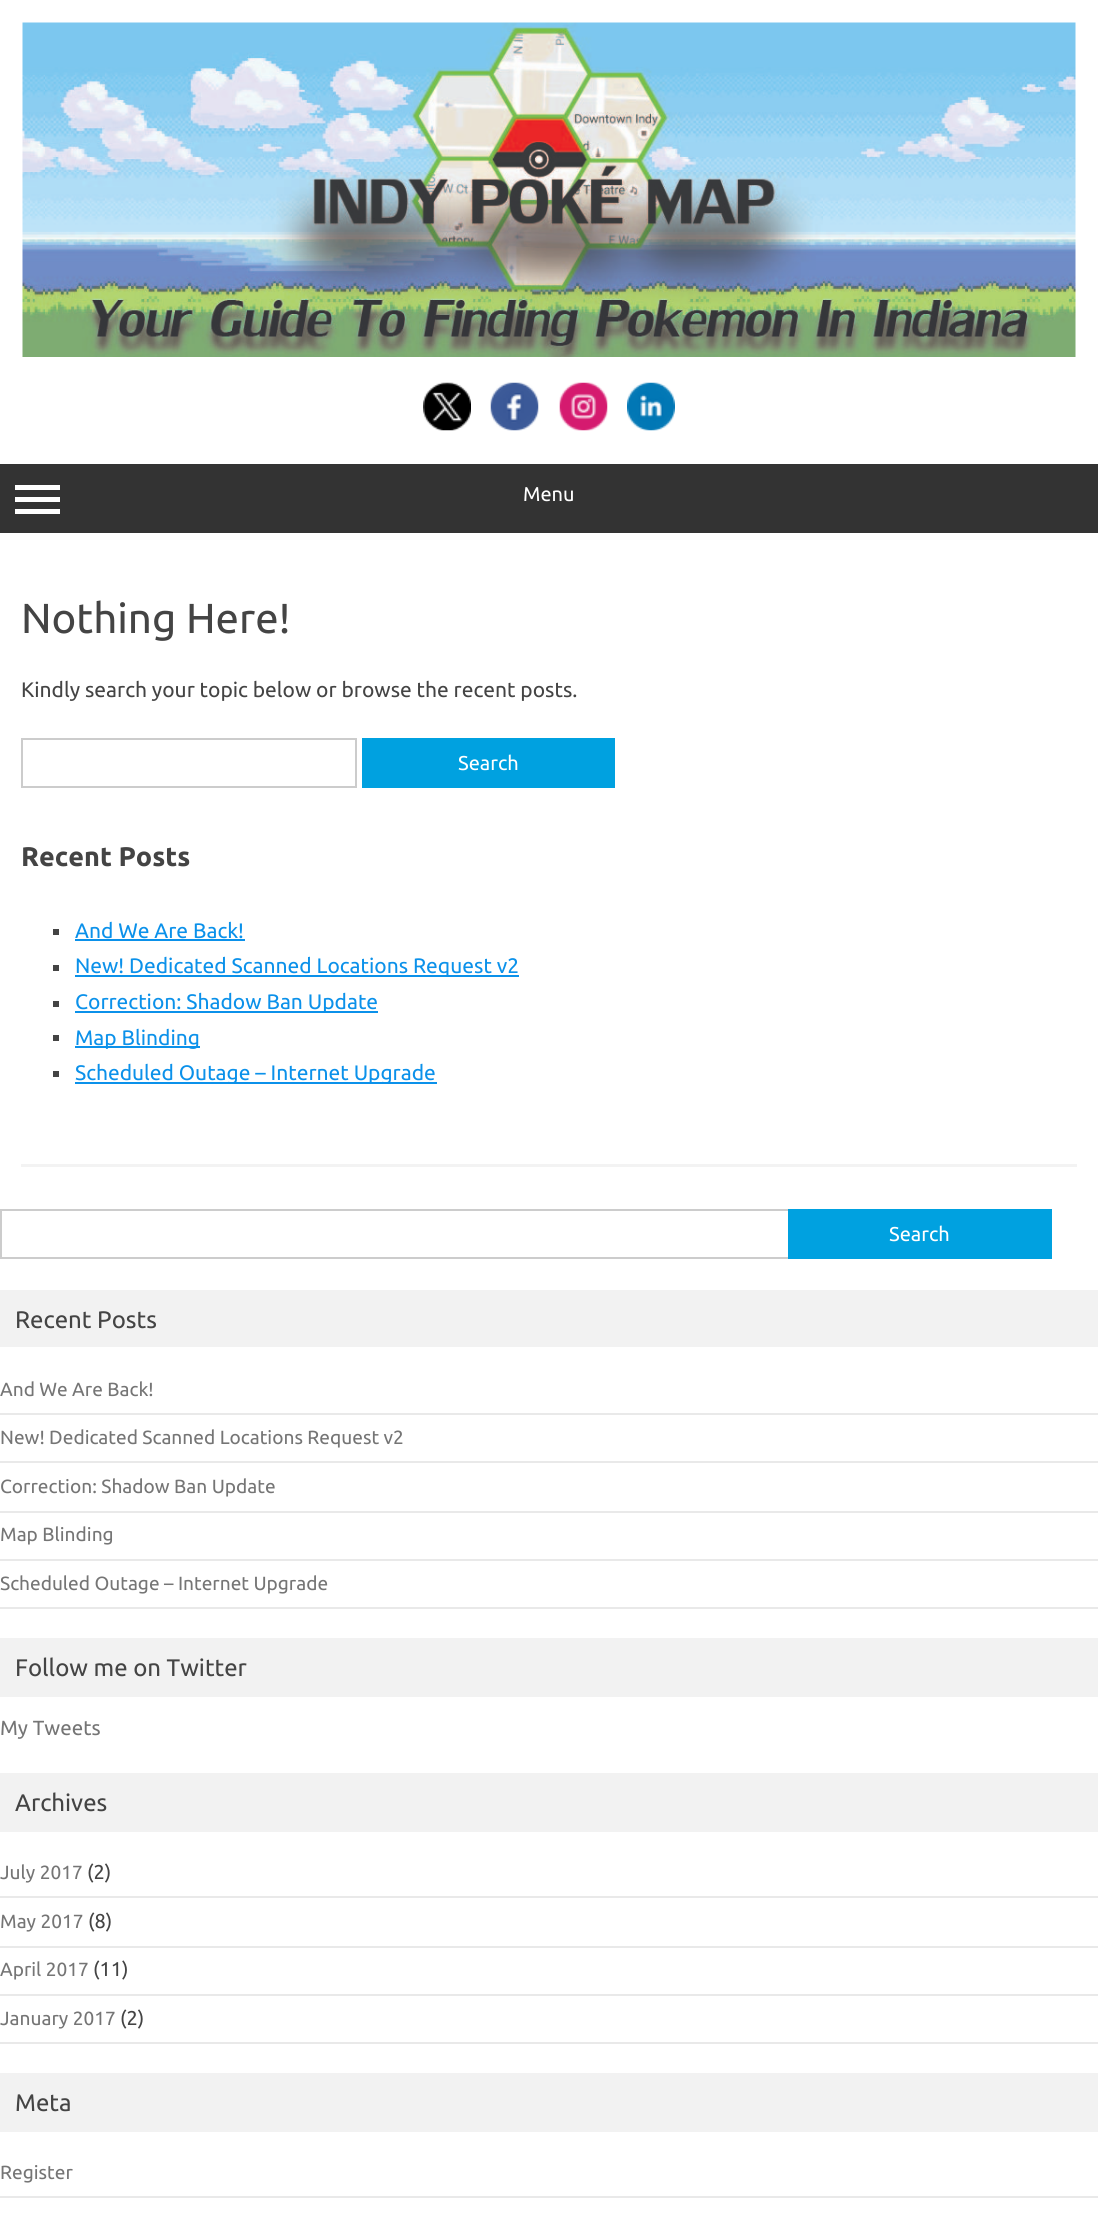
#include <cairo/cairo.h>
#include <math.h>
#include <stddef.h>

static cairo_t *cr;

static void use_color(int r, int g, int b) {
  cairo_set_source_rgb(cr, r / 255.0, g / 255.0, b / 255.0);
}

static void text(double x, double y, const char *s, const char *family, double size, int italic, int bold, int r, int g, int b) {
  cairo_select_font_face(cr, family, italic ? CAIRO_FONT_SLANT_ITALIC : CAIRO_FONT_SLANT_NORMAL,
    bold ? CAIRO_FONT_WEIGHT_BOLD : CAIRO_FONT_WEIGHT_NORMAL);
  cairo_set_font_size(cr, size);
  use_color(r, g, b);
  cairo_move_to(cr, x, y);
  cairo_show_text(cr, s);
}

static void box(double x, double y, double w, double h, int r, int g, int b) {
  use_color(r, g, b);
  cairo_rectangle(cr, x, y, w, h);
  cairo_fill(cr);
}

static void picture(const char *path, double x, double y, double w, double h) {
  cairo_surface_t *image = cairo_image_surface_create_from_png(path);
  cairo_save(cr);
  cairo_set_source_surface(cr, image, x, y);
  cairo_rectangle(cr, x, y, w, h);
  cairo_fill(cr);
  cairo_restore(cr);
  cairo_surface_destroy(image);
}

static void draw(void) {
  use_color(255, 255, 255);
  cairo_paint(cr);
  picture("img_01.png", 22, 22, 1054, 335);
  picture("img_02.png", 423, 382, 48, 49);
  picture("img_03.png", 490, 382, 49, 49);
  picture("img_04.png", 559, 382, 49, 49);
  picture("img_05.png", 627, 382, 48, 49);
  box(0, 464, 1098, 69, 51, 51, 51);
  box(15, 485, 45, 5, 255, 255, 255);
  box(15, 497, 45, 5, 255, 255, 255);
  box(15, 509, 45, 5, 255, 255, 255);
  box(21, 1164, 1056, 3, 243, 243, 243);
  cairo_rectangle(cr, 22, 739, 334, 48);
  use_color(204, 204, 204);
  cairo_stroke(cr);
  box(362, 738, 253, 50, 0, 161, 224);
  box(53, 929, 6, 6, 68, 68, 68);
  box(75, 939, 170, 2, 11, 145, 234);
  box(53, 965, 6, 6, 68, 68, 68);
  box(75, 975, 444, 2, 11, 145, 234);
  box(53, 1001, 6, 6, 68, 68, 68);
  box(75, 1011, 303, 2, 11, 145, 234);
  box(53, 1035, 6, 6, 68, 68, 68);
  box(75, 1046, 125, 2, 11, 145, 234);
  box(53, 1071, 6, 6, 68, 68, 68);
  box(75, 1082, 362, 2, 11, 145, 234);
  cairo_rectangle(cr, 1, 1210, 789, 48);
  use_color(204, 204, 204);
  cairo_stroke(cr);
  box(788, 1209, 264, 50, 0, 161, 224);
  box(0, 1290, 1098, 57, 242, 242, 242);
  box(0, 1413, 1098, 2, 233, 233, 233);
  box(0, 1461, 1098, 2, 233, 233, 233);
  box(0, 1511, 1098, 2, 233, 233, 233);
  box(0, 1559, 1098, 2, 233, 233, 233);
  box(0, 1607, 1098, 2, 233, 233, 233);
  box(0, 1638, 1098, 59, 242, 242, 242);
  box(0, 1773, 1098, 59, 242, 242, 242);
  box(0, 1896, 1098, 2, 233, 233, 233);
  box(0, 1946, 1098, 2, 233, 233, 233);
  box(0, 1994, 1098, 2, 233, 233, 233);
  box(0, 2042, 1098, 2, 233, 233, 233);
  box(0, 2073, 1098, 59, 242, 242, 242);
  box(0, 2196, 1098, 2, 233, 233, 233);
  text(523, 501, "Menu", "Ubuntu", 20, 0, 0, 255, 255, 255);
  text(21, 633, "Nothing Here!", "Ubuntu", 42, 0, 0, 68, 68, 68);
  text(21, 697, "Kindly search your topic below or browse the recent posts.", "Ubuntu", 21, 0, 0, 68, 68, 68);
  text(458, 770, "Search", "Ubuntu", 20, 0, 0, 255, 255, 255);
  text(21, 866, "Recent Posts", "Ubuntu", 27, 0, 1, 68, 68, 68);
  text(75, 938, "And We Are Back!", "Ubuntu", 21, 0, 0, 11, 145, 234);
  text(75, 973, "New! Dedicated Scanned Locations Request v2", "Ubuntu", 21, 0, 0, 11, 145, 234);
  text(75, 1009, "Correction: Shadow Ban Update", "Ubuntu", 21, 0, 0, 11, 145, 234);
  text(75, 1045, "Map Blinding", "Ubuntu", 21, 0, 0, 11, 145, 234);
  text(75, 1080, "Scheduled Outage – Internet Upgrade", "Ubuntu", 21, 0, 0, 11, 145, 234);
  text(889, 1241, "Search", "Ubuntu", 20, 0, 0, 255, 255, 255);
  text(15, 1328, "Recent Posts", "Ubuntu", 24, 0, 0, 68, 68, 68);
  text(0, 1396, "And We Are Back!", "Ubuntu", 19.1, 0, 0, 117, 117, 117);
  text(0, 1444, "New! Dedicated Scanned Locations Request v2", "Ubuntu", 19.1, 0, 0, 117, 117, 117);
  text(0, 1493, "Correction: Shadow Ban Update", "Ubuntu", 19.1, 0, 0, 117, 117, 117);
  text(0, 1541, "Map Blinding", "Ubuntu", 19.1, 0, 0, 117, 117, 117);
  text(0, 1590, "Scheduled Outage – Internet Upgrade", "Ubuntu", 19.1, 0, 0, 117, 117, 117);
  text(15, 1676, "Follow me on Twitter", "Ubuntu", 24, 0, 0, 68, 68, 68);
  text(0, 1735, "My Tweets", "Ubuntu", 20.5, 0, 0, 117, 117, 117);
  text(15, 1811, "Archives", "Ubuntu", 24, 0, 0, 68, 68, 68);
  text(0, 1879, "July 2017", "Ubuntu", 19.1, 0, 0, 117, 117, 117);
  text(87, 1879, "(2)", "Ubuntu", 20, 0, 0, 68, 68, 68);
  text(0, 1928, "May 2017", "Ubuntu", 19.1, 0, 0, 117, 117, 117);
  text(88, 1928, "(8)", "Ubuntu", 20, 0, 0, 68, 68, 68);
  text(0, 1976, "April 2017", "Ubuntu", 19.1, 0, 0, 117, 117, 117);
  text(93, 1976, "(11)", "Ubuntu", 20, 0, 0, 68, 68, 68);
  text(0, 2025, "January 2017", "Ubuntu", 19.1, 0, 0, 117, 117, 117);
  text(120, 2025, "(2)", "Ubuntu", 20, 0, 0, 68, 68, 68);
  text(15, 2111, "Meta", "Ubuntu", 24, 0, 0, 68, 68, 68);
  text(0, 2179, "Register", "Ubuntu", 19.1, 0, 0, 117, 117, 117);
}

int main(void) {
  cairo_surface_t *surface = cairo_image_surface_create(CAIRO_FORMAT_RGB24, 1098, 2214);
  cr = cairo_create(surface);
  cairo_font_options_t *options = cairo_font_options_create();
  cairo_font_options_set_hint_metrics(options, CAIRO_HINT_METRICS_OFF);
  cairo_font_options_set_hint_style(options, CAIRO_HINT_STYLE_NONE);
  cairo_set_font_options(cr, options);
  cairo_set_miter_limit(cr, 4);
  draw();
  cairo_surface_write_to_png(surface, "out.png");
  cairo_font_options_destroy(options);
  cairo_destroy(cr);
  cairo_surface_destroy(surface);
  return 0;
}
